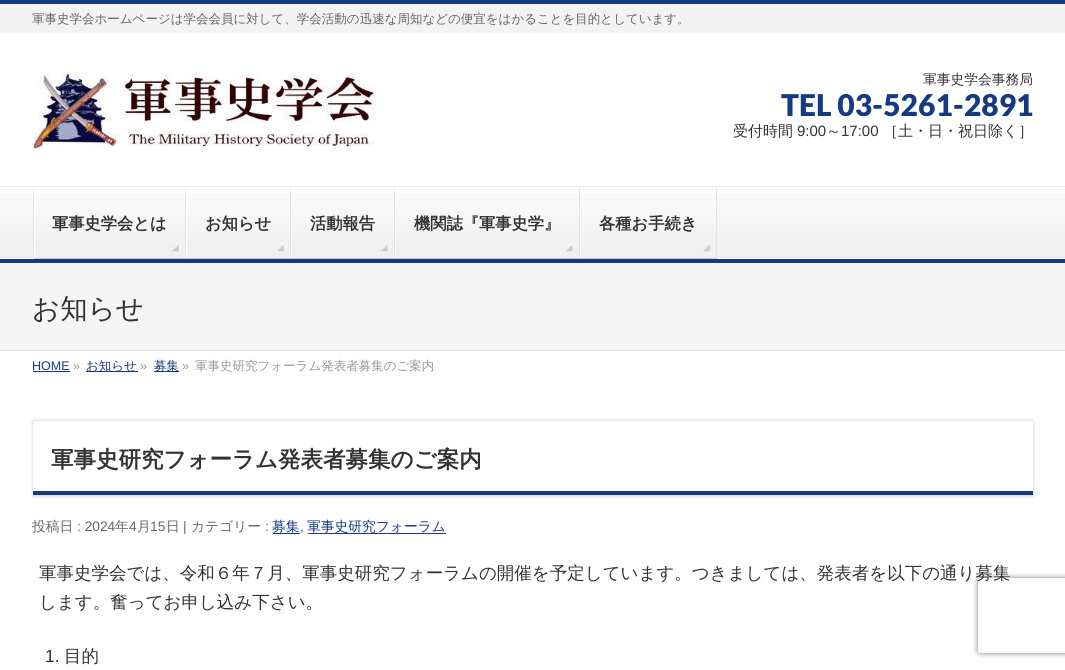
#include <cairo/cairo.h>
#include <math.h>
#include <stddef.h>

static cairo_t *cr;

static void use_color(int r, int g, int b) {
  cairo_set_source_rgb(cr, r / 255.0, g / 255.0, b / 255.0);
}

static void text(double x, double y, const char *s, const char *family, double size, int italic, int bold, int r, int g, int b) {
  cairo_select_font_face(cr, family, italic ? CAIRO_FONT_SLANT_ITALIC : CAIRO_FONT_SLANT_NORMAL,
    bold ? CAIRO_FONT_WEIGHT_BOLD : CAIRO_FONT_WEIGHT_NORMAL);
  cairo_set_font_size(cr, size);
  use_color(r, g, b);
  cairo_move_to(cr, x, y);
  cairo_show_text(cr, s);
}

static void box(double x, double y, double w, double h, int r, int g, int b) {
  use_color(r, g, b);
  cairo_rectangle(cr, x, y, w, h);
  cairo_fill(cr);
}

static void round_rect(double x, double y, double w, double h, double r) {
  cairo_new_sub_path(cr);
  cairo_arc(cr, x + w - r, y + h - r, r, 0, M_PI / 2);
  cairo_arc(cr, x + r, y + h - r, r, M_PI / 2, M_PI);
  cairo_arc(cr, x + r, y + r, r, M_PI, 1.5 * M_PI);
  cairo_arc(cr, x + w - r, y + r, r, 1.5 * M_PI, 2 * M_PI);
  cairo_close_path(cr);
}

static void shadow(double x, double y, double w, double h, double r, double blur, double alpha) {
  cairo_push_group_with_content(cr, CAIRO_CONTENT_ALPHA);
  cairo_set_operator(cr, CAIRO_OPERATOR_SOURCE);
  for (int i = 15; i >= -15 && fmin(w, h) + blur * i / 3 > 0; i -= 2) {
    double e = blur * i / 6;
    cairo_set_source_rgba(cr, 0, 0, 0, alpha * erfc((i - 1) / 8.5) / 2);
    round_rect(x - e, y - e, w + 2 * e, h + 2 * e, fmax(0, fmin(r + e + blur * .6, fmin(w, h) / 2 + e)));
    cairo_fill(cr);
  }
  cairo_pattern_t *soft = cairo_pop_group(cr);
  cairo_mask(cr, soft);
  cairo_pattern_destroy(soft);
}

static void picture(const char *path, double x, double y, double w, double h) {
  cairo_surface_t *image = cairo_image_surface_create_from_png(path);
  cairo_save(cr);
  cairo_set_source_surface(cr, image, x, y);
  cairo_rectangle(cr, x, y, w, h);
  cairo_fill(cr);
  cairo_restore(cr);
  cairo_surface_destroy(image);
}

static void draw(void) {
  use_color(255, 255, 255);
  cairo_paint(cr);
  box(0, 4, 1065, 29, 243, 243, 243);
  box(0, 0, 1065, 4, 22, 58, 130);
  picture("img_01.png", 32, 73, 342, 76);
  picture("img_02.png", 0, 193, 1065, 66);
  box(0, 186, 1065, 1, 238, 238, 238);
  box(0, 259, 1065, 4, 22, 58, 130);
  box(33, 188, 1, 71, 229, 229, 229);
  box(34, 188, 1, 71, 255, 255, 255);
  picture("img_03.png", 172, 245, 7, 7);
  box(185, 188, 1, 71, 229, 229, 229);
  box(34, 258, 152, 1, 204, 204, 204);
  box(186, 188, 1, 71, 255, 255, 255);
  picture("img_04.png", 277, 245, 7, 7);
  box(290, 188, 1, 71, 229, 229, 229);
  box(186, 258, 105, 1, 204, 204, 204);
  box(291, 188, 1, 71, 255, 255, 255);
  picture("img_05.png", 381, 245, 7, 7);
  box(394, 188, 1, 71, 229, 229, 229);
  box(291, 258, 104, 1, 204, 204, 204);
  box(395, 188, 1, 71, 255, 255, 255);
  picture("img_05.png", 566, 245, 7, 7);
  box(579, 188, 1, 71, 229, 229, 229);
  box(395, 258, 185, 1, 204, 204, 204);
  box(580, 188, 1, 71, 255, 255, 255);
  picture("img_06.png", 703, 245, 8, 7);
  box(716, 188, 1, 71, 229, 229, 229);
  box(580, 258, 138, 1, 204, 204, 204);
  box(0, 263, 1065, 87, 245, 245, 245);
  box(0, 350, 1065, 1, 229, 229, 229);
  box(33, 371, 37, 1, 22, 58, 130);
  box(86, 371, 52, 1, 22, 58, 130);
  box(154, 371, 25, 1, 22, 58, 130);
  cairo_save(cr);
  cairo_set_fill_rule(cr, CAIRO_FILL_RULE_EVEN_ODD);
  cairo_new_path(cr);
  cairo_move_to(cr, 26, 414);
  cairo_line_to(cr, 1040, 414);
  cairo_line_to(cr, 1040, 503);
  cairo_line_to(cr, 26, 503);
  cairo_close_path(cr);
  cairo_move_to(cr, 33, 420);
  cairo_line_to(cr, 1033, 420);
  cairo_line_to(cr, 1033, 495);
  cairo_line_to(cr, 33, 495);
  cairo_close_path(cr);
  cairo_clip(cr);
  use_color(0, 0, 0);
  shadow(33, 421, 1000, 75, 0, 2, 0.2);
  cairo_restore(cr);
  box(33, 420, 1000, 1, 229, 229, 229);
  box(33, 491, 1000, 4, 22, 58, 130);
  box(273, 533, 27, 1, 22, 58, 130);
  box(308, 533, 138, 1, 22, 58, 130);
  cairo_save(cr);
  cairo_set_fill_rule(cr, CAIRO_FILL_RULE_EVEN_ODD);
  cairo_new_path(cr);
  cairo_move_to(cr, 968, 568);
  cairo_line_to(cr, 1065, 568);
  cairo_line_to(cr, 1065, 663);
  cairo_line_to(cr, 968, 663);
  cairo_close_path(cr);
  cairo_move_to(cr, 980.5, 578);
  cairo_line_to(cr, 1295.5, 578);
  cairo_curve_to(cr, 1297, 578, 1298, 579, 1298, 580.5);
  cairo_line_to(cr, 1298, 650.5);
  cairo_curve_to(cr, 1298, 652, 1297, 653, 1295.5, 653);
  cairo_line_to(cr, 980.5, 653);
  cairo_curve_to(cr, 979, 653, 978, 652, 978, 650.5);
  cairo_line_to(cr, 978, 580.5);
  cairo_curve_to(cr, 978, 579, 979, 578, 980.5, 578);
  cairo_close_path(cr);
  cairo_clip(cr);
  use_color(128, 128, 128);
  shadow(978, 578, 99, 75, 2.5, 3, 1);
  cairo_restore(cr);
  text(32, 23, "軍事史学会ホームページは学会会員に対して、学会活動の迅速な周知などの便宜をはかることを目的としています。", "WenQuanYi Zen Hei Medium", 12.5, 0, 0, 102, 102, 102);
  text(923, 84, "軍事史学会事務局", "WenQuanYi Zen Hei Medium", 13.75, 0, 0, 51, 51, 51);
  text(781, 116, "TEL 03-5261-2891", "Lato Black", 30, 0, 0, 22, 58, 130);
  text(733, 136, "受付時間", "WenQuanYi Zen Hei Medium", 15, 0, 0, 51, 51, 51);
  text(797, 136, "9:00", "Liberation Sans", 15, 0, 0, 51, 51, 51);
  text(826, 136, "～", "WenQuanYi Zen Hei Medium", 15, 0, 0, 51, 51, 51);
  text(841, 136, "17:00", "Liberation Sans", 15, 0, 0, 51, 51, 51);
  text(883, 136, "［土・日・祝日除く］", "WenQuanYi Zen Hei Medium", 15, 0, 0, 51, 51, 51);
  text(52, 229, "軍事史学会とは", "WenQuanYi Zen Hei", 16.25, 0, 1, 51, 51, 51);
  text(205, 229, "お知らせ", "WenQuanYi Zen Hei", 16.25, 0, 1, 51, 51, 51);
  text(310, 229, "活動報告", "WenQuanYi Zen Hei", 16.25, 0, 1, 51, 51, 51);
  text(414, 229, "機関誌『軍事史学』", "WenQuanYi Zen Hei", 16.25, 0, 1, 51, 51, 51);
  text(599, 229, "各種お手続き", "WenQuanYi Zen Hei", 16.25, 0, 1, 51, 51, 51);
  text(32, 318, "お知らせ", "WenQuanYi Zen Hei Medium", 27.5, 0, 0, 51, 51, 51);
  text(32, 370, "HOME", "Liberation Sans", 12.5, 0, 0, 22, 58, 130);
  text(73, 370, "»", "Liberation Sans", 12.5, 0, 0, 153, 153, 153);
  text(86, 370, "お知らせ", "WenQuanYi Zen Hei Medium", 12.5, 0, 0, 22, 58, 130);
  text(140, 370, "»", "Liberation Sans", 12.5, 0, 0, 153, 153, 153);
  text(154, 370, "募集", "WenQuanYi Zen Hei Medium", 12.5, 0, 0, 22, 58, 130);
  text(182, 370, "»", "Liberation Sans", 12.5, 0, 0, 153, 153, 153);
  text(195, 370, "軍事史研究フォーラム発表者募集のご案内", "WenQuanYi Zen Hei Medium", 12.5, 0, 0, 153, 153, 153);
  text(51, 467, "軍事史研究フォーラム発表者募集のご案内", "WenQuanYi Zen Hei", 22.5, 0, 1, 51, 51, 51);
  text(32, 531, "投稿日", "WenQuanYi Zen Hei Medium", 13.75, 0, 0, 102, 102, 102);
  text(77, 531, ": 2024", "Liberation Sans", 13.75, 0, 0, 102, 102, 102);
  text(115, 531, "年", "WenQuanYi Zen Hei Medium", 13.75, 0, 0, 102, 102, 102);
  text(129, 531, "4", "Liberation Sans", 13.75, 0, 0, 102, 102, 102);
  text(137, 531, "月", "WenQuanYi Zen Hei Medium", 13.75, 0, 0, 102, 102, 102);
  text(150, 531, "15", "Liberation Sans", 13.75, 0, 0, 102, 102, 102);
  text(166, 531, "日", "WenQuanYi Zen Hei Medium", 13.75, 0, 0, 102, 102, 102);
  text(183, 531, "|", "Liberation Sans", 13.75, 0, 0, 102, 102, 102);
  text(191, 531, "カテゴリー", "WenQuanYi Zen Hei Medium", 13.75, 0, 0, 102, 102, 102);
  text(265, 531, ":", "Liberation Sans", 13.75, 0, 0, 102, 102, 102);
  text(272, 531, "募集", "WenQuanYi Zen Hei Medium", 13.75, 0, 0, 22, 58, 130);
  text(300, 531, ",", "Liberation Sans", 13.75, 0, 0, 102, 102, 102);
  text(307, 531, "軍事史研究フォーラム", "WenQuanYi Zen Hei Medium", 13.75, 0, 0, 22, 58, 130);
  text(39, 579, "軍事史学会では、令和６年７月、軍事史研究フォーラムの開催を予定しています。つきましては、発表者を以下の通り募集", "WenQuanYi Zen Hei Medium", 17.5, 0, 0, 51, 51, 51);
  text(39, 608, "します。奮ってお申し込み下さい。", "WenQuanYi Zen Hei Medium", 17.5, 0, 0, 51, 51, 51);
  text(45, 662, "1.", "Liberation Sans", 17.5, 0, 0, 51, 51, 51);
  text(64, 662, "目的", "WenQuanYi Zen Hei Medium", 17.5, 0, 0, 51, 51, 51);
}

int main(void) {
  cairo_surface_t *surface = cairo_image_surface_create(CAIRO_FORMAT_RGB24, 1065, 670);
  cr = cairo_create(surface);
  cairo_font_options_t *options = cairo_font_options_create();
  cairo_font_options_set_hint_metrics(options, CAIRO_HINT_METRICS_OFF);
  cairo_font_options_set_hint_style(options, CAIRO_HINT_STYLE_NONE);
  cairo_set_font_options(cr, options);
  cairo_set_miter_limit(cr, 4);
  draw();
  cairo_surface_write_to_png(surface, "out.png");
  cairo_font_options_destroy(options);
  cairo_destroy(cr);
  cairo_surface_destroy(surface);
  return 0;
}
